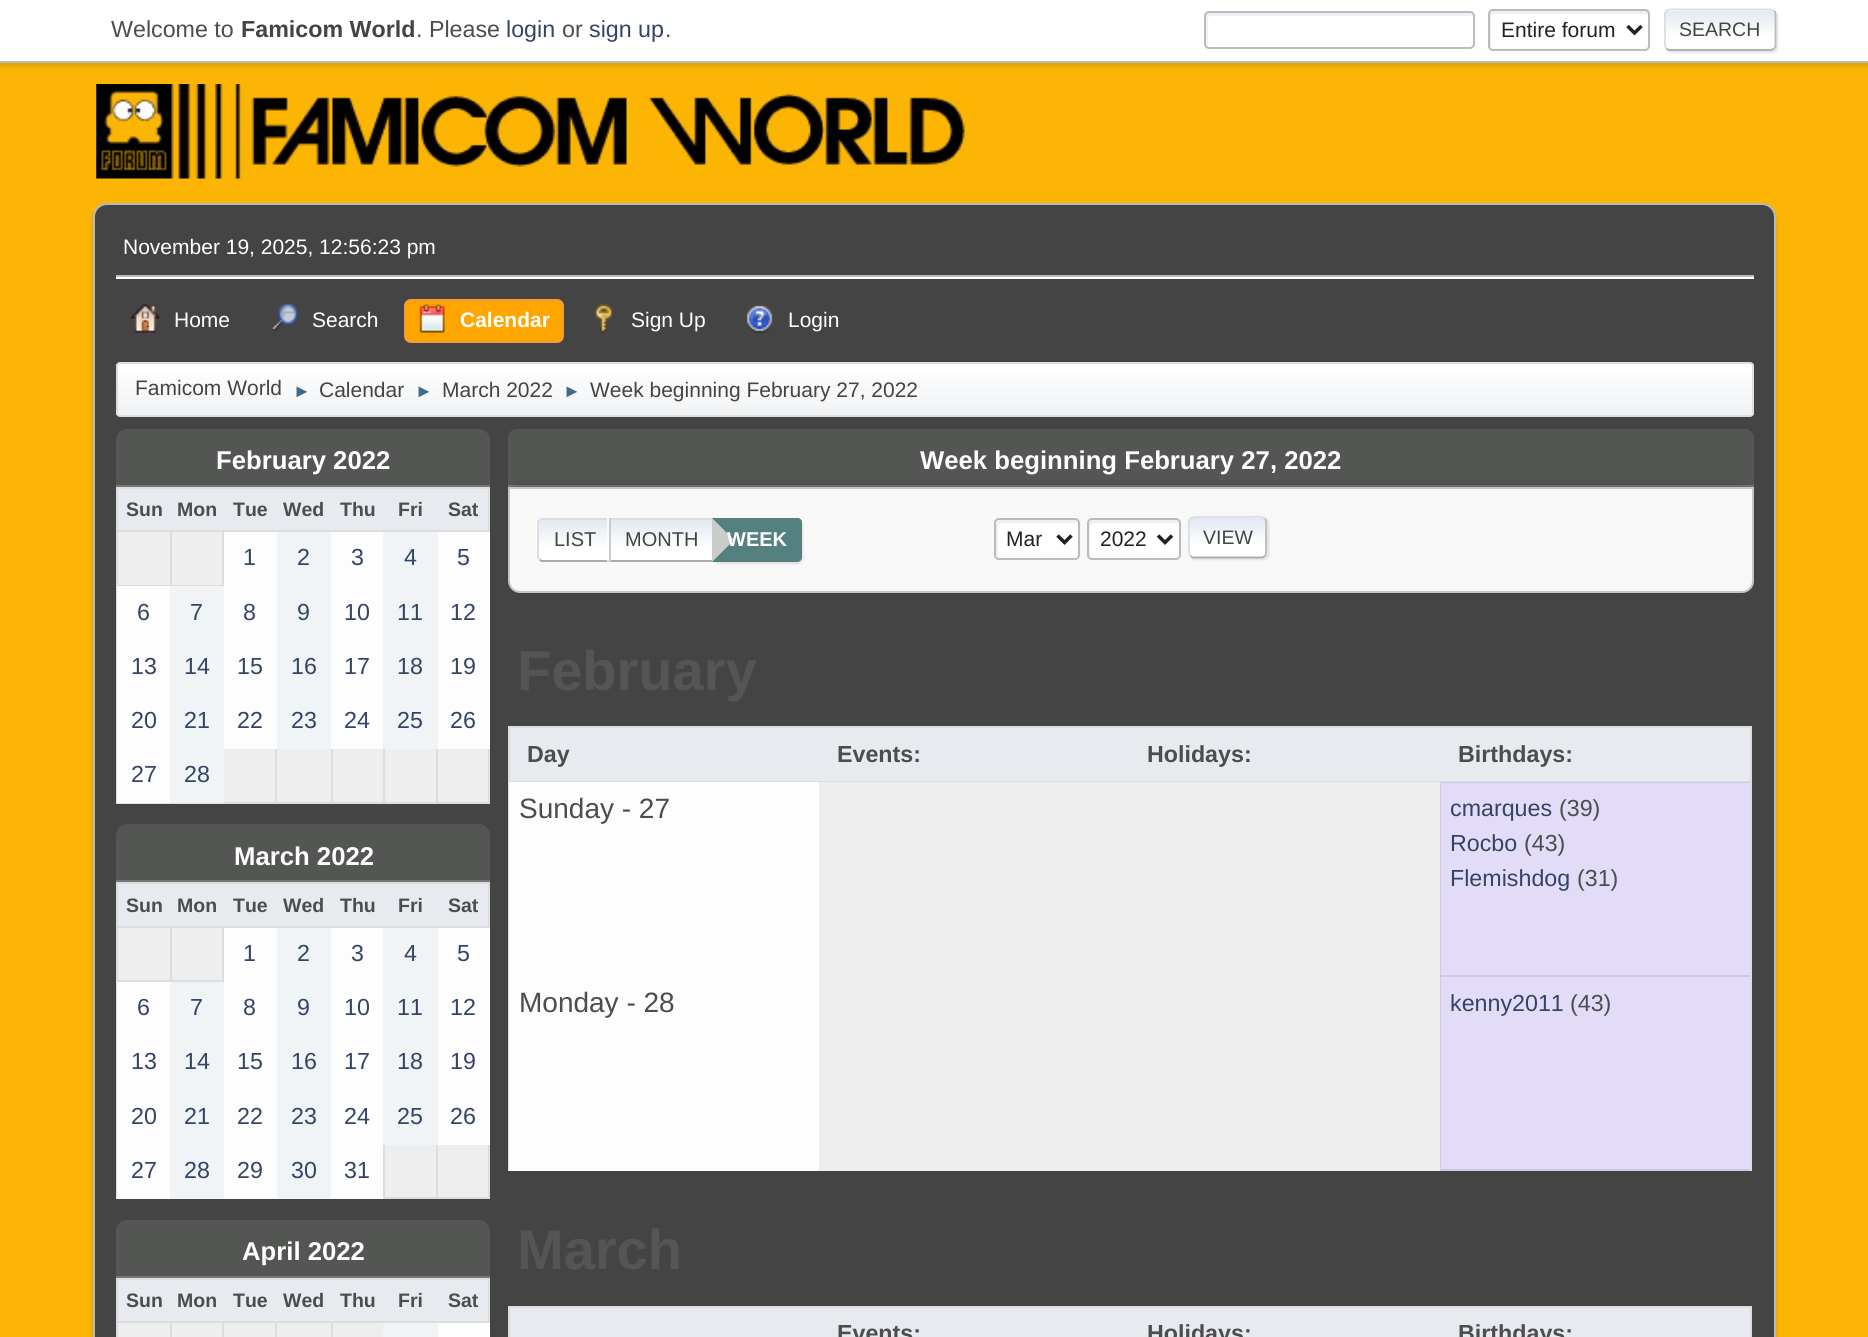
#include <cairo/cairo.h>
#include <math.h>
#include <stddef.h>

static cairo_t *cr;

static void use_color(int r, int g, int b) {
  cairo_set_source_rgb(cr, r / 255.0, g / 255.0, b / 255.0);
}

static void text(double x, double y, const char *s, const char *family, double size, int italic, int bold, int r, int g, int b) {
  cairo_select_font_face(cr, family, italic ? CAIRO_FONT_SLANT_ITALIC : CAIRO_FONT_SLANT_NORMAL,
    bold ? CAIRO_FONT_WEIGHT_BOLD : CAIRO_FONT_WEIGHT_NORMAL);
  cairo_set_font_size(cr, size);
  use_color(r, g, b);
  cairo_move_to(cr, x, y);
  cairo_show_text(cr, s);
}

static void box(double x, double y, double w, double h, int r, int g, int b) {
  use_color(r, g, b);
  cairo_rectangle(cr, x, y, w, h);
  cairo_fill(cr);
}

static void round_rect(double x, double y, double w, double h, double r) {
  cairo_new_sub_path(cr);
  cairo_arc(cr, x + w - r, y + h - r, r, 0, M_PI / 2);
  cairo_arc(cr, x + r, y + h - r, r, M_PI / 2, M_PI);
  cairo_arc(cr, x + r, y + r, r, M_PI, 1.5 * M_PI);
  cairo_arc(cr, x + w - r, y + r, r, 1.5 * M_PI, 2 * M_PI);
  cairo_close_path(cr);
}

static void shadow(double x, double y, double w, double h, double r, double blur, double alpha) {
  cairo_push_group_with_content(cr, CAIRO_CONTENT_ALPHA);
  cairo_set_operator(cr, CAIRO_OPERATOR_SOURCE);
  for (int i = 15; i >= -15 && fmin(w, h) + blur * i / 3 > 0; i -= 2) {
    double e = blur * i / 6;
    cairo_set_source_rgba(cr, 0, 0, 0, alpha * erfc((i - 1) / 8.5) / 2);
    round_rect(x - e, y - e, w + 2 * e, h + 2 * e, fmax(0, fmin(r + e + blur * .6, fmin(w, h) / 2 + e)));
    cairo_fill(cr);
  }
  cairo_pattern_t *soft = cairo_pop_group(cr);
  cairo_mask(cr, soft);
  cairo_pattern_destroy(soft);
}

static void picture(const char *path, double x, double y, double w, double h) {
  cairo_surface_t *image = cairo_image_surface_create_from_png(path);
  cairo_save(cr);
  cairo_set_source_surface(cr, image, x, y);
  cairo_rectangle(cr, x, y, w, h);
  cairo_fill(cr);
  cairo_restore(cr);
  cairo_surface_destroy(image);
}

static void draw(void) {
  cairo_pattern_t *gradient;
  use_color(252, 181, 4);
  cairo_paint(cr);
  use_color(0, 0, 0);
  shadow(0, 2, 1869, 63, 0, 3.5, 0.16);
  box(0, 0, 1868, 61, 255, 255, 255);
  box(0, 61, 1868, 2, 187, 187, 187);
  use_color(236, 241, 248);
  cairo_new_path(cr);
  cairo_move_to(cr, 1211, 16);
  cairo_line_to(cr, 1472, 16);
  cairo_line_to(cr, 1474, 17);
  cairo_line_to(cr, 1474, 16);
  cairo_curve_to(cr, 1474, 14, 1472, 12, 1470, 12);
  cairo_line_to(cr, 1210, 12);
  cairo_curve_to(cr, 1208, 12, 1206, 14, 1206, 16);
  cairo_line_to(cr, 1206, 43);
  cairo_curve_to(cr, 1206, 44, 1207, 46, 1208, 46);
  cairo_line_to(cr, 1208, 19);
  cairo_curve_to(cr, 1208, 17, 1209, 16, 1211, 16);
  cairo_close_path(cr);
  cairo_fill(cr);
  round_rect(1205, 12, 269, 36, 4);
  use_color(187, 187, 187);
  cairo_stroke(cr);
  use_color(236, 241, 248);
  cairo_new_path(cr);
  cairo_move_to(cr, 1494, 14);
  cairo_line_to(cr, 1647, 14);
  cairo_line_to(cr, 1649, 15);
  cairo_curve_to(cr, 1649, 13, 1647, 11, 1645, 11);
  cairo_line_to(cr, 1493, 11);
  cairo_curve_to(cr, 1491, 11, 1489, 13, 1489, 15);
  cairo_line_to(cr, 1489, 45);
  cairo_curve_to(cr, 1489, 46, 1490, 48, 1491, 48);
  cairo_line_to(cr, 1491, 18);
  cairo_curve_to(cr, 1491, 16, 1493, 14, 1494, 14);
  cairo_close_path(cr);
  cairo_fill(cr);
  round_rect(1489, 10, 160, 40, 4);
  use_color(187, 187, 187);
  cairo_stroke(cr);
  cairo_new_path(cr);
  cairo_move_to(cr, 1627.5, 26);
  cairo_line_to(cr, 1634.5, 33);
  cairo_line_to(cr, 1641.5, 26);
  use_color(34, 34, 34);
  cairo_set_line_width(cr, 3.5);
  cairo_stroke(cr);
  use_color(0, 0, 0);
  shadow(1666, 11, 112, 42, 5, 1, 0.1);
  use_color(255, 255, 255);
  round_rect(1664, 9, 112, 42, 5);
  cairo_fill(cr);
  cairo_save(cr);
  round_rect(1664, 9, 112, 42, 5);
  cairo_clip(cr);
  gradient = cairo_pattern_create_linear(1720, 10, 1720, 49);
  cairo_pattern_add_color_stop_rgba(gradient, 0, 0.886, 0.914, 0.953, 1);
  cairo_pattern_add_color_stop_rgba(gradient, 0.7, 1, 1, 1, 1);
  cairo_set_source(cr, gradient);
  cairo_pattern_destroy(gradient);
  cairo_rectangle(cr, 1664, 11, 112, 38);
  cairo_fill(cr);
  gradient = cairo_pattern_create_linear(1720, 49, 1720, 88);
  cairo_pattern_add_color_stop_rgba(gradient, 0, 0.886, 0.914, 0.953, 1);
  cairo_pattern_add_color_stop_rgba(gradient, 0.7, 1, 1, 1, 1);
  cairo_set_source(cr, gradient);
  cairo_pattern_destroy(gradient);
  cairo_rectangle(cr, 1664, 49, 112, 2);
  cairo_fill(cr);
  cairo_restore(cr);
  cairo_new_path(cr);
  cairo_move_to(cr, 1774, 11);
  cairo_curve_to(cr, 1775, 11.5, 1775.5, 13, 1775.5, 14);
  cairo_line_to(cr, 1775.5, 45.5);
  cairo_curve_to(cr, 1775.5, 46.5, 1775, 48, 1774, 48.5);
  use_color(187, 187, 187);
  cairo_set_line_width(cr, 1.8);
  cairo_stroke(cr);
  cairo_new_path(cr);
  cairo_move_to(cr, 1774, 48.5);
  cairo_line_to(cr, 1771.5, 50);
  cairo_line_to(cr, 1669, 50);
  cairo_line_to(cr, 1666.5, 48.5);
  use_color(170, 170, 170);
  cairo_stroke(cr);
  cairo_new_path(cr);
  cairo_move_to(cr, 1666.5, 48.5);
  cairo_curve_to(cr, 1664.5, 46.5, 1665, 42.5, 1665, 40);
  cairo_line_to(cr, 1665, 30);
  cairo_curve_to(cr, 1665, 6, 1661.5, 9.5, 1686.5, 9.5);
  cairo_line_to(cr, 1771, 9.5);
  cairo_line_to(cr, 1774, 11);
  use_color(221, 221, 221);
  cairo_stroke(cr);
  picture("img_01.png", 96, 84, 869, 95);
  use_color(0, 0, 0);
  shadow(93, 207, 1683, 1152, 14, 2.5, 0.14);
  use_color(68, 68, 68);
  round_rect(94, 204, 1681, 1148, 13);
  cairo_fill_preserve(cr);
  use_color(184, 184, 184);
  cairo_set_line_width(cr, 2);
  cairo_stroke(cr);
  box(116, 277, 1638, 2, 255, 255, 255);
  box(116, 275, 1638, 2, 187, 187, 187);
  picture("img_02.png", 131, 304, 29, 29);
  picture("img_03.png", 272, 304, 26, 27);
  use_color(255, 165, 0);
  round_rect(405, 300, 158, 42, 6);
  cairo_fill_preserve(cr);
  use_color(244, 154, 58);
  cairo_stroke(cr);
  picture("img_04.png", 419, 304, 26, 29);
  picture("img_05.png", 594, 304, 19, 29);
  picture("img_06.png", 746, 305, 27, 28);
  cairo_save(cr);
  round_rect(116, 362, 1638, 55, 4);
  cairo_clip(cr);
  gradient = cairo_pattern_create_linear(935, 364, 935, 415);
  cairo_pattern_add_color_stop_rgba(gradient, 0, 1, 1, 1, 1);
  cairo_pattern_add_color_stop_rgba(gradient, 0.95, 0.945, 0.953, 0.961, 1);
  cairo_set_source(cr, gradient);
  cairo_pattern_destroy(gradient);
  cairo_rectangle(cr, 116, 364, 1638, 51);
  cairo_fill(cr);
  cairo_restore(cr);
  round_rect(117, 363, 1636, 53, 3);
  use_color(221, 221, 221);
  cairo_stroke(cr);
  use_color(84, 86, 84);
  cairo_new_path(cr);
  cairo_move_to(cr, 127, 429);
  cairo_line_to(cr, 479, 429);
  cairo_curve_to(cr, 485, 429, 490, 434, 490, 440);
  cairo_line_to(cr, 490, 487);
  cairo_line_to(cr, 116, 487);
  cairo_line_to(cr, 116, 440);
  cairo_curve_to(cr, 116, 434, 121, 429, 127, 429);
  cairo_close_path(cr);
  cairo_fill(cr);
  box(116, 485, 374, 2, 119, 119, 119);
  box(116, 487, 374, 2, 221, 221, 221);
  box(488, 487, 2, 316, 221, 221, 221);
  box(116, 802, 374, 2, 221, 221, 221);
  box(116, 487, 2, 316, 221, 221, 221);
  box(118, 489, 370, 41, 231, 234, 239);
  box(116, 530, 374, 2, 221, 221, 221);
  box(118, 532, 52, 53, 238, 238, 238);
  box(172, 532, 50, 53, 238, 238, 238);
  box(170, 585, 54, 1, 221, 221, 221);
  box(116, 585, 56, 2, 221, 221, 221);
  box(170, 530, 2, 56, 221, 221, 221);
  box(222, 530, 2, 56, 221, 221, 221);
  box(275, 747, 2, 56, 221, 221, 221);
  box(224, 532, 53, 217, 253, 253, 253);
  box(277, 532, 54, 217, 240, 244, 247);
  box(331, 747, 2, 56, 221, 221, 221);
  box(331, 532, 52, 217, 253, 253, 253);
  box(383, 747, 2, 56, 221, 221, 221);
  box(436, 747, 2, 56, 221, 221, 221);
  box(383, 532, 55, 217, 240, 244, 247);
  box(438, 532, 52, 217, 253, 253, 253);
  box(117, 586, 53, 217, 253, 253, 253);
  box(170, 586, 54, 217, 240, 244, 247);
  box(224, 749, 51, 53, 238, 238, 238);
  box(277, 749, 54, 53, 238, 238, 238);
  box(333, 749, 50, 53, 238, 238, 238);
  box(385, 749, 51, 53, 238, 238, 238);
  box(438, 749, 50, 53, 238, 238, 238);
  use_color(84, 86, 84);
  cairo_new_path(cr);
  cairo_move_to(cr, 127, 824);
  cairo_line_to(cr, 479, 824);
  cairo_curve_to(cr, 485, 824, 490, 829, 490, 835);
  cairo_line_to(cr, 490, 882);
  cairo_line_to(cr, 116, 882);
  cairo_line_to(cr, 116, 835);
  cairo_curve_to(cr, 116, 829, 121, 824, 127, 824);
  cairo_close_path(cr);
  cairo_fill(cr);
  box(116, 880, 374, 2, 119, 119, 119);
  box(116, 882, 374, 2, 221, 221, 221);
  box(488, 882, 2, 317, 221, 221, 221);
  box(385, 1197, 105, 2, 221, 221, 221);
  box(116, 882, 2, 317, 221, 221, 221);
  box(118, 884, 370, 42, 231, 234, 239);
  box(116, 926, 374, 2, 221, 221, 221);
  box(118, 928, 52, 52, 238, 238, 238);
  box(172, 928, 50, 52, 238, 238, 238);
  box(116, 980, 108, 2, 221, 221, 221);
  box(170, 926, 2, 56, 221, 221, 221);
  box(222, 926, 2, 56, 221, 221, 221);
  box(224, 928, 53, 271, 253, 253, 253);
  box(277, 928, 54, 271, 240, 244, 247);
  box(331, 928, 52, 271, 253, 253, 253);
  box(383, 1143, 2, 56, 221, 221, 221);
  box(436, 1143, 2, 56, 221, 221, 221);
  box(383, 928, 55, 217, 240, 244, 247);
  box(438, 928, 52, 217, 253, 253, 253);
  box(117, 982, 53, 217, 253, 253, 253);
  box(170, 982, 54, 217, 240, 244, 247);
  box(385, 1145, 51, 52, 238, 238, 238);
  box(438, 1145, 50, 52, 238, 238, 238);
  use_color(84, 86, 84);
  cairo_new_path(cr);
  cairo_move_to(cr, 127, 1220);
  cairo_line_to(cr, 479, 1220);
  cairo_curve_to(cr, 485, 1220, 490, 1225, 490, 1231);
  cairo_line_to(cr, 490, 1278);
  cairo_line_to(cr, 116, 1278);
  cairo_line_to(cr, 116, 1231);
  cairo_curve_to(cr, 116, 1225, 121, 1220, 127, 1220);
  cairo_close_path(cr);
  cairo_fill(cr);
  box(116, 1276, 374, 2, 119, 119, 119);
  box(116, 1278, 374, 2, 221, 221, 221);
  box(488, 1278, 2, 43, 221, 221, 221);
  box(116, 1278, 2, 59, 221, 221, 221);
  box(118, 1280, 370, 41, 231, 234, 239);
  box(116, 1321, 374, 2, 221, 221, 221);
  box(118, 1323, 52, 14, 238, 238, 238);
  box(172, 1323, 50, 14, 238, 238, 238);
  box(170, 1321, 2, 16, 221, 221, 221);
  box(224, 1323, 51, 14, 238, 238, 238);
  box(222, 1321, 2, 16, 221, 221, 221);
  box(277, 1323, 54, 14, 238, 238, 238);
  box(275, 1321, 2, 16, 221, 221, 221);
  box(333, 1323, 50, 14, 238, 238, 238);
  box(331, 1321, 2, 16, 221, 221, 221);
  box(383, 1323, 55, 14, 240, 244, 247);
  box(438, 1323, 52, 14, 253, 253, 253);
  use_color(84, 86, 84);
  cairo_new_path(cr);
  cairo_move_to(cr, 517, 429);
  cairo_line_to(cr, 1745, 429);
  cairo_curve_to(cr, 1750, 429, 1754, 433, 1754, 438);
  cairo_line_to(cr, 1754, 487);
  cairo_line_to(cr, 508, 487);
  cairo_line_to(cr, 508, 438);
  cairo_curve_to(cr, 508, 433, 512, 429, 517, 429);
  cairo_close_path(cr);
  cairo_fill(cr);
  box(508, 485, 1246, 2, 119, 119, 119);
  use_color(0, 0, 0);
  shadow(508, 483, 1246, 107, 12, 2, 0.1);
  use_color(248, 248, 248);
  cairo_new_path(cr);
  cairo_move_to(cr, 509, 488);
  cairo_line_to(cr, 1753, 488);
  cairo_line_to(cr, 1753, 581);
  cairo_curve_to(cr, 1753, 587, 1748, 592, 1742, 592);
  cairo_line_to(cr, 520, 592);
  cairo_curve_to(cr, 514, 592, 509, 587, 509, 581);
  cairo_close_path(cr);
  cairo_fill_preserve(cr);
  use_color(197, 197, 197);
  cairo_stroke(cr);
  use_color(253, 253, 253);
  cairo_new_path(cr);
  cairo_move_to(cr, 541, 518);
  cairo_line_to(cr, 542, 518);
  cairo_curve_to(cr, 540, 518, 537, 520, 537, 523);
  cairo_line_to(cr, 537, 556);
  cairo_curve_to(cr, 537, 559, 540, 562, 542, 562);
  cairo_line_to(cr, 607, 562);
  cairo_line_to(cr, 541, 562);
  cairo_curve_to(cr, 538, 562, 536, 560, 536, 557);
  cairo_line_to(cr, 536, 523);
  cairo_curve_to(cr, 536, 520, 538, 518, 541, 518);
  cairo_close_path(cr);
  cairo_fill(cr);
  use_color(255, 255, 255);
  cairo_new_path(cr);
  cairo_move_to(cr, 542, 518);
  cairo_line_to(cr, 609, 518);
  cairo_line_to(cr, 609, 562);
  cairo_line_to(cr, 542, 562);
  cairo_curve_to(cr, 539, 562, 537, 560, 537, 557);
  cairo_line_to(cr, 537, 523);
  cairo_curve_to(cr, 537, 520, 539, 518, 542, 518);
  cairo_close_path(cr);
  cairo_fill(cr);
  cairo_save(cr);
  cairo_new_path(cr);
  cairo_move_to(cr, 542, 518);
  cairo_line_to(cr, 609, 518);
  cairo_line_to(cr, 609, 562);
  cairo_line_to(cr, 542, 562);
  cairo_curve_to(cr, 539, 562, 537, 560, 537, 557);
  cairo_line_to(cr, 537, 523);
  cairo_curve_to(cr, 537, 520, 539, 518, 542, 518);
  cairo_close_path(cr);
  cairo_clip(cr);
  gradient = cairo_pattern_create_linear(574, 520, 574, 560);
  cairo_pattern_add_color_stop_rgba(gradient, 0, 0.886, 0.914, 0.953, 1);
  cairo_pattern_add_color_stop_rgba(gradient, 0.7, 1, 1, 1, 1);
  cairo_set_source(cr, gradient);
  cairo_pattern_destroy(gradient);
  cairo_rectangle(cr, 537, 520, 72, 40);
  cairo_fill(cr);
  gradient = cairo_pattern_create_linear(574, 560, 574, 600);
  cairo_pattern_add_color_stop_rgba(gradient, 0, 0.886, 0.914, 0.953, 1);
  cairo_pattern_add_color_stop_rgba(gradient, 0.7, 1, 1, 1, 1);
  cairo_set_source(cr, gradient);
  cairo_pattern_destroy(gradient);
  cairo_rectangle(cr, 537, 560, 4, 2);
  cairo_fill(cr);
  cairo_restore(cr);
  use_color(221, 221, 221);
  cairo_new_path(cr);
  cairo_move_to(cr, 542, 518);
  cairo_line_to(cr, 609, 518);
  cairo_line_to(cr, 609, 520);
  cairo_line_to(cr, 542, 520);
  cairo_line_to(cr, 540, 521);
  cairo_line_to(cr, 539, 519);
  cairo_close_path(cr);
  cairo_fill(cr);
  use_color(170, 170, 170);
  cairo_new_path(cr);
  cairo_move_to(cr, 609, 562);
  cairo_line_to(cr, 609, 560);
  cairo_line_to(cr, 542, 560);
  cairo_line_to(cr, 540, 559);
  cairo_line_to(cr, 539, 560);
  cairo_line_to(cr, 541, 562);
  cairo_close_path(cr);
  cairo_fill(cr);
  use_color(221, 221, 221);
  cairo_new_path(cr);
  cairo_move_to(cr, 540, 521);
  cairo_line_to(cr, 539, 519);
  cairo_line_to(cr, 537, 522);
  cairo_line_to(cr, 537, 558);
  cairo_line_to(cr, 539, 560);
  cairo_line_to(cr, 540, 559);
  cairo_curve_to(cr, 540, 558, 539, 557, 539, 556);
  cairo_line_to(cr, 539, 523);
  cairo_curve_to(cr, 539, 522, 539, 521, 540, 521);
  cairo_close_path(cr);
  cairo_fill(cr);
  cairo_set_source_rgba(cr, 1, 1, 1, 0.7);
  cairo_new_path(cr);
  cairo_move_to(cr, 607, 518);
  cairo_line_to(cr, 609, 518);
  cairo_line_to(cr, 609, 562);
  cairo_line_to(cr, 711, 562);
  cairo_line_to(cr, 607, 562);
  cairo_close_path(cr);
  cairo_fill(cr);
  gradient = cairo_pattern_create_linear(662, 520, 662, 560);
  cairo_pattern_add_color_stop_rgba(gradient, 0, 0.886, 0.914, 0.953, 1);
  cairo_pattern_add_color_stop_rgba(gradient, 0.7, 1, 1, 1, 1);
  cairo_set_source(cr, gradient);
  cairo_pattern_destroy(gradient);
  cairo_rectangle(cr, 611, 520, 101, 40);
  cairo_fill(cr);
  box(609, 518, 103, 2, 221, 221, 221);
  box(609, 560, 103, 2, 170, 170, 170);
  box(609, 518, 2, 44, 204, 204, 204);
  use_color(0, 0, 0);
  shadow(714, 520, 89, 44, 5, 1, 0.1);
  use_color(85, 126, 160);
  cairo_new_path(cr);
  cairo_move_to(cr, 712, 518);
  cairo_line_to(cr, 797, 518);
  cairo_curve_to(cr, 800, 518, 802, 520, 802, 523);
  cairo_line_to(cr, 802, 557);
  cairo_curve_to(cr, 802, 560, 800, 562, 797, 562);
  cairo_line_to(cr, 712, 562);
  cairo_close_path(cr);
  cairo_fill(cr);
  use_color(85, 128, 128);
  cairo_new_path(cr);
  cairo_move_to(cr, 712, 518);
  cairo_line_to(cr, 734, 540);
  cairo_line_to(cr, 780, 540);
  cairo_line_to(cr, 800, 519);
  cairo_curve_to(cr, 799, 518, 798, 518, 796, 518);
  cairo_close_path(cr);
  cairo_fill(cr);
  cairo_new_path(cr);
  cairo_move_to(cr, 800, 519);
  cairo_line_to(cr, 780, 540);
  cairo_line_to(cr, 800, 560);
  cairo_line_to(cr, 802, 558);
  cairo_line_to(cr, 802, 521);
  cairo_close_path(cr);
  cairo_fill(cr);
  cairo_new_path(cr);
  cairo_move_to(cr, 800, 560);
  cairo_line_to(cr, 780, 540);
  cairo_line_to(cr, 734, 540);
  cairo_line_to(cr, 712, 562);
  cairo_line_to(cr, 798, 562);
  cairo_close_path(cr);
  cairo_fill(cr);
  use_color(204, 204, 204);
  cairo_new_path(cr);
  cairo_move_to(cr, 712, 562);
  cairo_line_to(cr, 734, 540);
  cairo_line_to(cr, 712, 518);
  cairo_close_path(cr);
  cairo_fill(cr);
  use_color(255, 255, 255);
  round_rect(994, 518, 86, 42, 5);
  cairo_fill(cr);
  use_color(236, 241, 248);
  cairo_new_path(cr);
  cairo_move_to(cr, 1001, 523);
  cairo_line_to(cr, 1076, 523);
  cairo_line_to(cr, 1078, 524);
  cairo_curve_to(cr, 1078, 522, 1076, 520, 1074, 520);
  cairo_line_to(cr, 1000, 520);
  cairo_curve_to(cr, 998, 520, 996, 522, 996, 524);
  cairo_line_to(cr, 996, 554);
  cairo_curve_to(cr, 996, 555, 997, 557, 998, 557);
  cairo_line_to(cr, 998, 527);
  cairo_curve_to(cr, 998, 525, 999, 523, 1001, 523);
  cairo_close_path(cr);
  cairo_fill(cr);
  round_rect(995, 519, 84, 40, 4);
  use_color(187, 187, 187);
  cairo_stroke(cr);
  cairo_new_path(cr);
  cairo_move_to(cr, 1057.5, 535.5);
  cairo_line_to(cr, 1064.5, 542.5);
  cairo_line_to(cr, 1071.5, 535.5);
  use_color(34, 34, 34);
  cairo_set_line_width(cr, 3.5);
  cairo_stroke(cr);
  use_color(255, 255, 255);
  round_rect(1087, 518, 94, 42, 5);
  cairo_fill(cr);
  use_color(236, 241, 248);
  cairo_new_path(cr);
  cairo_move_to(cr, 1094, 523);
  cairo_line_to(cr, 1178, 523);
  cairo_line_to(cr, 1180, 524);
  cairo_curve_to(cr, 1180, 522, 1178, 520, 1176, 520);
  cairo_line_to(cr, 1093, 520);
  cairo_curve_to(cr, 1091, 520, 1089, 522, 1089, 524);
  cairo_line_to(cr, 1089, 554);
  cairo_curve_to(cr, 1089, 555, 1089, 556, 1090, 557);
  cairo_line_to(cr, 1090, 527);
  cairo_curve_to(cr, 1090, 525, 1092, 523, 1094, 523);
  cairo_close_path(cr);
  cairo_fill(cr);
  round_rect(1088, 519, 92, 40, 4);
  use_color(187, 187, 187);
  cairo_set_line_width(cr, 2);
  cairo_stroke(cr);
  cairo_new_path(cr);
  cairo_move_to(cr, 1158, 535.5);
  cairo_line_to(cr, 1165, 542.5);
  cairo_line_to(cr, 1172, 535.5);
  use_color(34, 34, 34);
  cairo_set_line_width(cr, 3.5);
  cairo_stroke(cr);
  use_color(0, 0, 0);
  shadow(1190, 518, 79, 42, 5, 1, 0.1);
  cairo_save(cr);
  round_rect(1188, 516, 79, 42, 5);
  cairo_clip(cr);
  gradient = cairo_pattern_create_linear(1228, 480, 1228, 518);
  cairo_pattern_add_color_stop_rgba(gradient, 0, 0.886, 0.914, 0.953, 1);
  cairo_pattern_add_color_stop_rgba(gradient, 0.7, 1, 1, 1, 1);
  cairo_set_source(cr, gradient);
  cairo_pattern_destroy(gradient);
  cairo_rectangle(cr, 1188, 516, 79, 2);
  cairo_fill(cr);
  gradient = cairo_pattern_create_linear(1228, 518, 1228, 557);
  cairo_pattern_add_color_stop_rgba(gradient, 0, 0.886, 0.914, 0.953, 1);
  cairo_pattern_add_color_stop_rgba(gradient, 0.7, 1, 1, 1, 1);
  cairo_set_source(cr, gradient);
  cairo_pattern_destroy(gradient);
  cairo_rectangle(cr, 1188, 518, 79, 39);
  cairo_fill(cr);
  cairo_restore(cr);
  cairo_new_path(cr);
  cairo_move_to(cr, 1265, 518.5);
  cairo_curve_to(cr, 1265.5, 519, 1266, 520.5, 1266, 521.5);
  cairo_line_to(cr, 1266, 553);
  cairo_curve_to(cr, 1266, 554, 1265.5, 555.5, 1265, 556);
  use_color(187, 187, 187);
  cairo_set_line_width(cr, 1.8);
  cairo_stroke(cr);
  cairo_new_path(cr);
  cairo_move_to(cr, 1265, 556);
  cairo_line_to(cr, 1262, 557.5);
  cairo_line_to(cr, 1193, 557.5);
  cairo_line_to(cr, 1190.5, 556);
  use_color(170, 170, 170);
  cairo_stroke(cr);
  cairo_new_path(cr);
  cairo_move_to(cr, 1190.5, 556);
  cairo_curve_to(cr, 1188.5, 554, 1189, 550, 1189, 548);
  cairo_line_to(cr, 1189, 537);
  cairo_curve_to(cr, 1189, 516.5, 1185, 517, 1205, 517);
  cairo_line_to(cr, 1250.5, 517);
  cairo_curve_to(cr, 1251, 517, 1262, 515.5, 1265, 518.5);
  use_color(221, 221, 221);
  cairo_stroke(cr);
  box(1441, 977, 309, 192, 226, 220, 248);
  box(1441, 783, 309, 192, 226, 220, 248);
  box(508, 726, 1244, 2, 221, 221, 221);
  box(1750, 726, 2, 445, 221, 221, 221);
  box(1440, 1169, 310, 2, 209, 199, 224);
  box(508, 726, 2, 445, 221, 221, 221);
  box(510, 728, 1240, 53, 231, 234, 239);
  box(1439, 781, 313, 2, 221, 221, 221);
  box(819, 781, 621, 1, 221, 221, 221);
  box(508, 781, 313, 2, 221, 221, 221);
  box(509, 782, 310, 389, 253, 253, 253);
  box(819, 782, 621, 195, 238, 238, 238);
  box(1440, 782, 310, 1, 209, 199, 224);
  box(1440, 975, 310, 2, 209, 199, 224);
  box(1440, 782, 1, 195, 209, 199, 224);
  box(819, 977, 621, 194, 238, 238, 238);
  box(1440, 977, 1, 194, 209, 199, 224);
  box(508, 1306, 1244, 2, 221, 221, 221);
  box(1750, 1306, 2, 31, 221, 221, 221);
  box(508, 1306, 2, 31, 221, 221, 221);
  box(510, 1308, 1240, 29, 231, 234, 239);
  text(111, 37, "Welcome to", "Liberation Sans", 23.25, 0, 0, 77, 77, 77);
  text(241, 37, "Famicom World", "Liberation Sans", 23.25, 0, 1, 68, 68, 68);
  text(416, 37, ". Please", "Liberation Sans", 23.25, 0, 0, 77, 77, 77);
  text(506, 37, "login", "Liberation Sans", 23.25, 0, 0, 51, 68, 102);
  text(562, 37, "or", "Liberation Sans", 23.25, 0, 0, 77, 77, 77);
  text(589, 37, "sign up", "Liberation Sans", 23.25, 0, 0, 51, 68, 102);
  text(665, 37, ".", "Liberation Sans", 23.25, 0, 0, 77, 77, 77);
  text(1501, 37, "Entire forum", "Liberation Sans", 21, 0, 0, 34, 34, 34);
  text(1679, 36, "SEARCH", "Liberation Sans", 19.5, 0, 0, 68, 68, 68);
  text(123, 254, "November 19, 2025, 12:56:23 pm", "Liberation Sans", 21, 0, 0, 255, 255, 255);
  text(174, 327, "Home", "Liberation Sans", 21, 0, 0, 255, 255, 255);
  text(312, 327, "Search", "Liberation Sans", 21, 0, 0, 255, 255, 255);
  text(460, 327, "Calendar", "Liberation Sans", 21, 0, 1, 255, 255, 255);
  text(631, 327, "Sign Up", "Liberation Sans", 21, 0, 0, 255, 255, 255);
  text(788, 327, "Login", "Liberation Sans", 21, 0, 0, 255, 255, 255);
  text(135, 395, "Famicom World", "Liberation Sans", 21, 0, 0, 68, 68, 68);
  text(293, 397, "►", "Liberation Sans", 18, 0, 0, 63, 107, 140);
  text(319, 397, "Calendar", "Liberation Sans", 21, 0, 0, 68, 68, 68);
  text(415, 397, "►", "Liberation Sans", 18, 0, 0, 63, 107, 140);
  text(442, 397, "March 2022", "Liberation Sans", 21, 0, 0, 68, 68, 68);
  text(563, 397, "►", "Liberation Sans", 18, 0, 0, 63, 107, 140);
  text(590, 397, "Week beginning February 27, 2022", "Liberation Sans", 21, 0, 0, 68, 68, 68);
  text(216, 469, "February 2022", "Liberation Sans", 25.7, 0, 1, 255, 255, 255);
  text(126, 516, "Sun", "Liberation Sans", 19.5, 0, 1, 77, 77, 77);
  text(177, 516, "Mon", "Liberation Sans", 19.5, 0, 1, 77, 77, 77);
  text(233, 516, "Tue", "Liberation Sans", 19.5, 0, 1, 77, 77, 77);
  text(283, 516, "Wed", "Liberation Sans", 19.5, 0, 1, 77, 77, 77);
  text(340, 516, "Thu", "Liberation Sans", 19.5, 0, 1, 77, 77, 77);
  text(398, 516, "Fri", "Liberation Sans", 19.5, 0, 1, 77, 77, 77);
  text(448, 516, "Sat", "Liberation Sans", 19.5, 0, 1, 77, 77, 77);
  text(243, 565, "1", "Liberation Sans", 23.25, 0, 0, 51, 68, 102);
  text(297, 565, "2", "Liberation Sans", 23.25, 0, 0, 51, 68, 102);
  text(351, 565, "3", "Liberation Sans", 23.25, 0, 0, 51, 68, 102);
  text(404, 565, "4", "Liberation Sans", 23.25, 0, 0, 51, 68, 102);
  text(457, 565, "5", "Liberation Sans", 23.25, 0, 0, 51, 68, 102);
  text(137, 620, "6", "Liberation Sans", 23.25, 0, 0, 51, 68, 102);
  text(190, 620, "7", "Liberation Sans", 23.25, 0, 0, 51, 68, 102);
  text(243, 620, "8", "Liberation Sans", 23.25, 0, 0, 51, 68, 102);
  text(297, 620, "9", "Liberation Sans", 23.25, 0, 0, 51, 68, 102);
  text(344, 620, "10", "Liberation Sans", 23.25, 0, 0, 51, 68, 102);
  text(397, 620, "11", "Liberation Sans", 23.25, 0, 0, 51, 68, 102);
  text(450, 620, "12", "Liberation Sans", 23.25, 0, 0, 51, 68, 102);
  text(131, 674, "13", "Liberation Sans", 23.25, 0, 0, 51, 68, 102);
  text(184, 674, "14", "Liberation Sans", 23.25, 0, 0, 51, 68, 102);
  text(237, 674, "15", "Liberation Sans", 23.25, 0, 0, 51, 68, 102);
  text(291, 674, "16", "Liberation Sans", 23.25, 0, 0, 51, 68, 102);
  text(344, 674, "17", "Liberation Sans", 23.25, 0, 0, 51, 68, 102);
  text(397, 674, "18", "Liberation Sans", 23.25, 0, 0, 51, 68, 102);
  text(450, 674, "19", "Liberation Sans", 23.25, 0, 0, 51, 68, 102);
  text(131, 728, "20", "Liberation Sans", 23.25, 0, 0, 51, 68, 102);
  text(184, 728, "21", "Liberation Sans", 23.25, 0, 0, 51, 68, 102);
  text(237, 728, "22", "Liberation Sans", 23.25, 0, 0, 51, 68, 102);
  text(291, 728, "23", "Liberation Sans", 23.25, 0, 0, 51, 68, 102);
  text(344, 728, "24", "Liberation Sans", 23.25, 0, 0, 51, 68, 102);
  text(397, 728, "25", "Liberation Sans", 23.25, 0, 0, 51, 68, 102);
  text(450, 728, "26", "Liberation Sans", 23.25, 0, 0, 51, 68, 102);
  text(131, 782, "27", "Liberation Sans", 23.25, 0, 0, 51, 68, 102);
  text(184, 782, "28", "Liberation Sans", 23.25, 0, 0, 51, 68, 102);
  text(234, 865, "March 2022", "Liberation Sans", 25.7, 0, 1, 255, 255, 255);
  text(126, 912, "Sun", "Liberation Sans", 19.5, 0, 1, 77, 77, 77);
  text(177, 912, "Mon", "Liberation Sans", 19.5, 0, 1, 77, 77, 77);
  text(233, 912, "Tue", "Liberation Sans", 19.5, 0, 1, 77, 77, 77);
  text(283, 912, "Wed", "Liberation Sans", 19.5, 0, 1, 77, 77, 77);
  text(340, 912, "Thu", "Liberation Sans", 19.5, 0, 1, 77, 77, 77);
  text(398, 912, "Fri", "Liberation Sans", 19.5, 0, 1, 77, 77, 77);
  text(448, 912, "Sat", "Liberation Sans", 19.5, 0, 1, 77, 77, 77);
  text(243, 961, "1", "Liberation Sans", 23.25, 0, 0, 51, 68, 102);
  text(297, 961, "2", "Liberation Sans", 23.25, 0, 0, 51, 68, 102);
  text(351, 961, "3", "Liberation Sans", 23.25, 0, 0, 51, 68, 102);
  text(404, 961, "4", "Liberation Sans", 23.25, 0, 0, 51, 68, 102);
  text(457, 961, "5", "Liberation Sans", 23.25, 0, 0, 51, 68, 102);
  text(137, 1015, "6", "Liberation Sans", 23.25, 0, 0, 51, 68, 102);
  text(190, 1015, "7", "Liberation Sans", 23.25, 0, 0, 51, 68, 102);
  text(243, 1015, "8", "Liberation Sans", 23.25, 0, 0, 51, 68, 102);
  text(297, 1015, "9", "Liberation Sans", 23.25, 0, 0, 51, 68, 102);
  text(344, 1015, "10", "Liberation Sans", 23.25, 0, 0, 51, 68, 102);
  text(397, 1015, "11", "Liberation Sans", 23.25, 0, 0, 51, 68, 102);
  text(450, 1015, "12", "Liberation Sans", 23.25, 0, 0, 51, 68, 102);
  text(131, 1069, "13", "Liberation Sans", 23.25, 0, 0, 51, 68, 102);
  text(184, 1069, "14", "Liberation Sans", 23.25, 0, 0, 51, 68, 102);
  text(237, 1069, "15", "Liberation Sans", 23.25, 0, 0, 51, 68, 102);
  text(291, 1069, "16", "Liberation Sans", 23.25, 0, 0, 51, 68, 102);
  text(344, 1069, "17", "Liberation Sans", 23.25, 0, 0, 51, 68, 102);
  text(397, 1069, "18", "Liberation Sans", 23.25, 0, 0, 51, 68, 102);
  text(450, 1069, "19", "Liberation Sans", 23.25, 0, 0, 51, 68, 102);
  text(131, 1124, "20", "Liberation Sans", 23.25, 0, 0, 51, 68, 102);
  text(184, 1124, "21", "Liberation Sans", 23.25, 0, 0, 51, 68, 102);
  text(237, 1124, "22", "Liberation Sans", 23.25, 0, 0, 51, 68, 102);
  text(291, 1124, "23", "Liberation Sans", 23.25, 0, 0, 51, 68, 102);
  text(344, 1124, "24", "Liberation Sans", 23.25, 0, 0, 51, 68, 102);
  text(397, 1124, "25", "Liberation Sans", 23.25, 0, 0, 51, 68, 102);
  text(450, 1124, "26", "Liberation Sans", 23.25, 0, 0, 51, 68, 102);
  text(131, 1178, "27", "Liberation Sans", 23.25, 0, 0, 51, 68, 102);
  text(184, 1178, "28", "Liberation Sans", 23.25, 0, 0, 51, 68, 102);
  text(237, 1178, "29", "Liberation Sans", 23.25, 0, 0, 51, 68, 102);
  text(291, 1178, "30", "Liberation Sans", 23.25, 0, 0, 51, 68, 102);
  text(344, 1178, "31", "Liberation Sans", 23.25, 0, 0, 51, 68, 102);
  text(242, 1260, "April 2022", "Liberation Sans", 25.7, 0, 1, 255, 255, 255);
  text(126, 1307, "Sun", "Liberation Sans", 19.5, 0, 1, 77, 77, 77);
  text(177, 1307, "Mon", "Liberation Sans", 19.5, 0, 1, 77, 77, 77);
  text(233, 1307, "Tue", "Liberation Sans", 19.5, 0, 1, 77, 77, 77);
  text(283, 1307, "Wed", "Liberation Sans", 19.5, 0, 1, 77, 77, 77);
  text(340, 1307, "Thu", "Liberation Sans", 19.5, 0, 1, 77, 77, 77);
  text(398, 1307, "Fri", "Liberation Sans", 19.5, 0, 1, 77, 77, 77);
  text(448, 1307, "Sat", "Liberation Sans", 19.5, 0, 1, 77, 77, 77);
  text(920, 469, "Week beginning February 27, 2022", "Liberation Sans", 25.7, 0, 1, 255, 255, 255);
  text(554, 546, "LIST", "Liberation Sans", 20, 0, 0, 68, 68, 68);
  text(625, 546, "MONTH", "Liberation Sans", 20, 0, 0, 68, 68, 68);
  text(727, 546, "WEEK", "Liberation Sans", 20, 0, 1, 255, 255, 255);
  text(1006, 546, "Mar", "Liberation Sans", 21, 0, 0, 34, 34, 34);
  text(1100, 546, "2022", "Liberation Sans", 21, 0, 0, 34, 34, 34);
  text(1203, 544, "VIEW", "Liberation Sans", 19.5, 0, 0, 68, 68, 68);
  text(517, 690, "February", "Liberation Sans", 56, 0, 1, 85, 85, 85);
  text(527, 762, "Day", "Liberation Sans", 23.25, 0, 1, 77, 77, 77);
  text(837, 762, "Events:", "Liberation Sans", 23.25, 0, 1, 77, 77, 77);
  text(1147, 762, "Holidays:", "Liberation Sans", 23.25, 0, 1, 77, 77, 77);
  text(1458, 762, "Birthdays:", "Liberation Sans", 23.25, 0, 1, 77, 77, 77);
  text(519, 818, "Sunday - 27", "Liberation Sans", 28, 0, 0, 77, 77, 77);
  text(1450, 816, "cmarques", "Liberation Sans", 23.25, 0, 0, 51, 68, 102);
  text(1559, 816, "(39)", "Liberation Sans", 23.25, 0, 0, 77, 77, 77);
  text(1450, 851, "Rocbo", "Liberation Sans", 23.25, 0, 0, 51, 68, 102);
  text(1524, 851, "(43)", "Liberation Sans", 23.25, 0, 0, 77, 77, 77);
  text(1450, 886, "Flemishdog", "Liberation Sans", 23.25, 0, 0, 51, 68, 102);
  text(1577, 886, "(31)", "Liberation Sans", 23.25, 0, 0, 77, 77, 77);
  text(519, 1012, "Monday - 28", "Liberation Sans", 28, 0, 0, 77, 77, 77);
  text(1450, 1011, "kenny2011", "Liberation Sans", 23.25, 0, 0, 51, 68, 102);
  text(1570, 1011, "(43)", "Liberation Sans", 23.25, 0, 0, 77, 77, 77);
  text(517, 1269, "March", "Liberation Sans", 56, 0, 1, 85, 85, 85);
  text(837, 1341, "Events:", "Liberation Sans", 23.25, 0, 1, 77, 77, 77);
  text(1147, 1341, "Holidays:", "Liberation Sans", 23.25, 0, 1, 77, 77, 77);
  text(1458, 1341, "Birthdays:", "Liberation Sans", 23.25, 0, 1, 77, 77, 77);
}

int main(void) {
  cairo_surface_t *surface = cairo_image_surface_create(CAIRO_FORMAT_RGB24, 1868, 1337);
  cr = cairo_create(surface);
  cairo_font_options_t *options = cairo_font_options_create();
  cairo_font_options_set_hint_metrics(options, CAIRO_HINT_METRICS_OFF);
  cairo_font_options_set_hint_style(options, CAIRO_HINT_STYLE_NONE);
  cairo_set_font_options(cr, options);
  cairo_set_miter_limit(cr, 4);
  draw();
  cairo_surface_write_to_png(surface, "out.png");
  cairo_font_options_destroy(options);
  cairo_destroy(cr);
  cairo_surface_destroy(surface);
  return 0;
}
